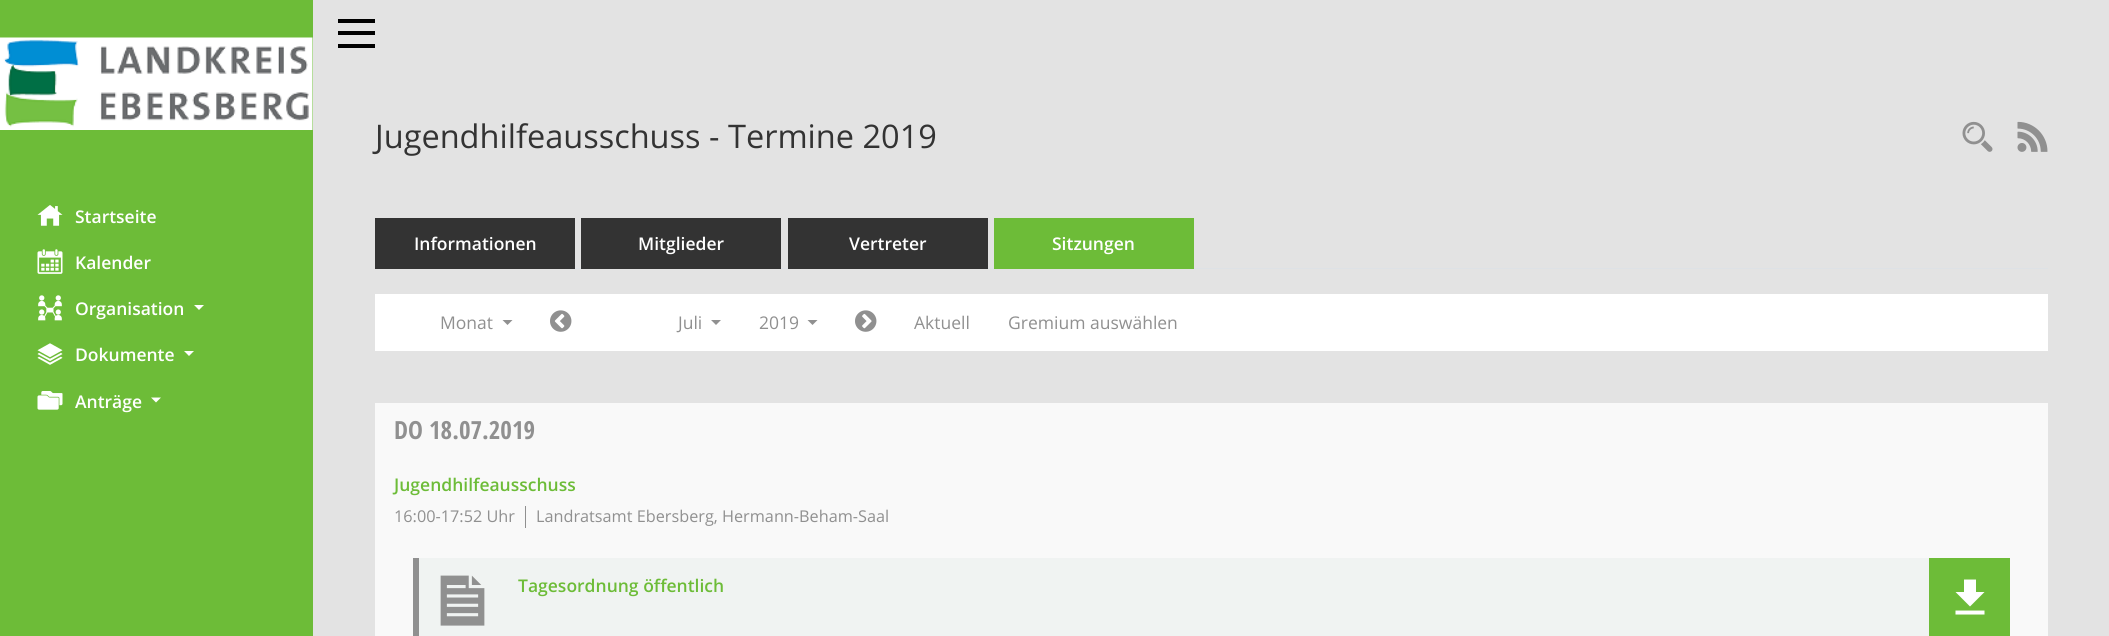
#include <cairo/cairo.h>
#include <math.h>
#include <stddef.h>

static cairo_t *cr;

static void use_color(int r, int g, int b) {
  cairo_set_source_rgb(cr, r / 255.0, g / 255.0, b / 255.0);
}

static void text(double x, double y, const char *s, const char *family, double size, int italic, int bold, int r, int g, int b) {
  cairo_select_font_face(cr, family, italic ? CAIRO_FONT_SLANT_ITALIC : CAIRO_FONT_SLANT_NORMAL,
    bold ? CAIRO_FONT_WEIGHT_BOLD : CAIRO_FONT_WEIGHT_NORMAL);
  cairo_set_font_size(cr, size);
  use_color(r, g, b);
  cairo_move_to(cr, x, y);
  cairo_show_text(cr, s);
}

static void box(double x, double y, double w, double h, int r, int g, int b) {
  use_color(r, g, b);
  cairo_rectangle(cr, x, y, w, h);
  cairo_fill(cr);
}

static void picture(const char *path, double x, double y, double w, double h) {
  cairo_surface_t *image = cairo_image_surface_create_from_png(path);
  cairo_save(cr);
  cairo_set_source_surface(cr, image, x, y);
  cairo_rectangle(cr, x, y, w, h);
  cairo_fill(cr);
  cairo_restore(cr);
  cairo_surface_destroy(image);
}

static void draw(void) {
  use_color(227, 227, 227);
  cairo_paint(cr);
  box(0, 0, 313, 636, 109, 188, 56);
  picture("img_01.png", 0, 37, 313, 93);
  picture("img_02.png", 37, 205, 26, 21);
  picture("img_03.png", 37, 249, 26, 25);
  picture("img_04.png", 38, 295, 24, 26);
  use_color(255, 255, 255);
  cairo_new_path(cr);
  cairo_move_to(cr, 194, 305);
  cairo_line_to(cr, 204, 305);
  cairo_line_to(cr, 199, 310);
  cairo_close_path(cr);
  cairo_fill(cr);
  picture("img_05.png", 37, 343, 26, 22);
  cairo_new_path(cr);
  cairo_move_to(cr, 184, 351);
  cairo_line_to(cr, 194, 351);
  cairo_line_to(cr, 189, 356);
  cairo_close_path(cr);
  cairo_fill(cr);
  picture("img_06.png", 37, 391, 26, 19);
  cairo_new_path(cr);
  cairo_move_to(cr, 151, 397.5);
  cairo_line_to(cr, 161, 397.5);
  cairo_line_to(cr, 156, 402.5);
  cairo_close_path(cr);
  cairo_fill(cr);
  box(338, 19, 37, 4, 0, 0, 0);
  box(338, 31, 37, 4, 0, 0, 0);
  box(338, 44, 37, 4, 0, 0, 0);
  picture("img_07.png", 1962, 121, 31, 31);
  picture("img_08.png", 2017, 121, 31, 31);
  box(575, 268, 1473, 1, 222, 226, 230);
  box(375, 218, 200, 51, 51, 51, 51);
  box(581, 218, 200, 51, 51, 51, 51);
  box(788, 218, 200, 51, 51, 51, 51);
  box(994, 218, 200, 51, 109, 188, 56);
  box(375, 294, 1673, 57, 255, 255, 255);
  use_color(144, 144, 144);
  cairo_new_path(cr);
  cairo_move_to(cr, 502.5, 320);
  cairo_line_to(cr, 512.5, 320);
  cairo_line_to(cr, 507.5, 325);
  cairo_close_path(cr);
  cairo_fill(cr);
  picture("img_09.png", 550, 310, 22, 22);
  cairo_new_path(cr);
  cairo_move_to(cr, 711, 320);
  cairo_line_to(cr, 721, 320);
  cairo_line_to(cr, 716, 325);
  cairo_close_path(cr);
  cairo_fill(cr);
  cairo_new_path(cr);
  cairo_move_to(cr, 807.5, 320);
  cairo_line_to(cr, 817.5, 320);
  cairo_line_to(cr, 812.5, 325);
  cairo_close_path(cr);
  cairo_fill(cr);
  picture("img_10.png", 855, 310, 22, 22);
  box(375, 403, 1673, 233, 249, 249, 249);
  box(525, 506, 1, 22, 144, 144, 144);
  box(419, 558, 1510, 78, 240, 243, 242);
  box(413, 558, 6, 78, 144, 144, 144);
  picture("img_11.png", 440, 575, 45, 51);
  box(1929, 558, 81, 78, 109, 188, 56);
  use_color(255, 255, 255);
  cairo_new_path(cr);
  cairo_move_to(cr, 1984.5, 592);
  cairo_line_to(cr, 1976, 592);
  cairo_line_to(cr, 1976, 579.5);
  cairo_line_to(cr, 1964, 579.5);
  cairo_line_to(cr, 1964, 592);
  cairo_line_to(cr, 1955.5, 592);
  cairo_line_to(cr, 1970, 606.5);
  cairo_close_path(cr);
  cairo_move_to(cr, 1955.5, 610.5);
  cairo_line_to(cr, 1955.5, 614.5);
  cairo_line_to(cr, 1984.5, 614.5);
  cairo_line_to(cr, 1984.5, 610.5);
  cairo_close_path(cr);
  cairo_fill(cr);
  text(75, 223, "Startseite", "Open Sans SemiBold", 17.5, 0, 0, 255, 255, 255);
  text(75, 269, "Kalender", "Open Sans SemiBold", 17.5, 0, 0, 255, 255, 255);
  text(75, 315, "Organisation", "Open Sans SemiBold", 17.5, 0, 0, 255, 255, 255);
  text(75, 361, "Dokumente", "Open Sans SemiBold", 17.5, 0, 0, 255, 255, 255);
  text(75, 408, "Anträge", "Open Sans SemiBold", 17.5, 0, 0, 255, 255, 255);
  text(375, 148, "Jugendhilfeausschuss - Termine 2019", "Open Sans", 32.5, 0, 0, 51, 51, 51);
  text(414, 250, "Informationen", "Open Sans SemiBold", 17.5, 0, 0, 255, 255, 255);
  text(638, 250, "Mitglieder", "Open Sans SemiBold", 17.5, 0, 0, 255, 255, 255);
  text(849, 250, "Vertreter", "Open Sans SemiBold", 17.5, 0, 0, 255, 255, 255);
  text(1052, 250, "Sitzungen", "Open Sans SemiBold", 17.5, 0, 0, 255, 255, 255);
  text(440, 329, "Monat", "Open Sans", 17.5, 0, 0, 144, 144, 144);
  text(678, 329, "Juli", "Open Sans", 17.5, 0, 0, 144, 144, 144);
  text(759, 329, "2019", "Open Sans", 17.5, 0, 0, 144, 144, 144);
  text(914, 329, "Aktuell", "Open Sans", 17.5, 0, 0, 144, 144, 144);
  text(1008, 329, "Gremium auswählen", "Open Sans", 17.5, 0, 0, 144, 144, 144);
  text(394, 439, "DO", "Open Sans Condensed", 25, 0, 1, 144, 144, 144);
  text(429, 439, "18.07.2019", "Open Sans Condensed", 25, 0, 1, 144, 144, 144);
  text(394, 491, "Jugendhilfeausschuss", "Open Sans SemiBold", 17.5, 0, 0, 109, 188, 56);
  text(394, 522, "16:00-17:52 Uhr", "Open Sans", 16.25, 0, 0, 144, 144, 144);
  text(536, 522, "Landratsamt Ebersberg, Hermann-Beham-Saal", "Open Sans", 16.25, 0, 0, 144, 144, 144);
  text(518, 592, "Tagesordnung öffentlich", "Open Sans SemiBold", 17.5, 0, 0, 109, 188, 56);
}

int main(void) {
  cairo_surface_t *surface = cairo_image_surface_create(CAIRO_FORMAT_RGB24, 2109, 636);
  cr = cairo_create(surface);
  cairo_font_options_t *options = cairo_font_options_create();
  cairo_font_options_set_hint_metrics(options, CAIRO_HINT_METRICS_OFF);
  cairo_font_options_set_hint_style(options, CAIRO_HINT_STYLE_NONE);
  cairo_set_font_options(cr, options);
  cairo_set_miter_limit(cr, 4);
  draw();
  cairo_surface_write_to_png(surface, "out.png");
  cairo_font_options_destroy(options);
  cairo_destroy(cr);
  cairo_surface_destroy(surface);
  return 0;
}
